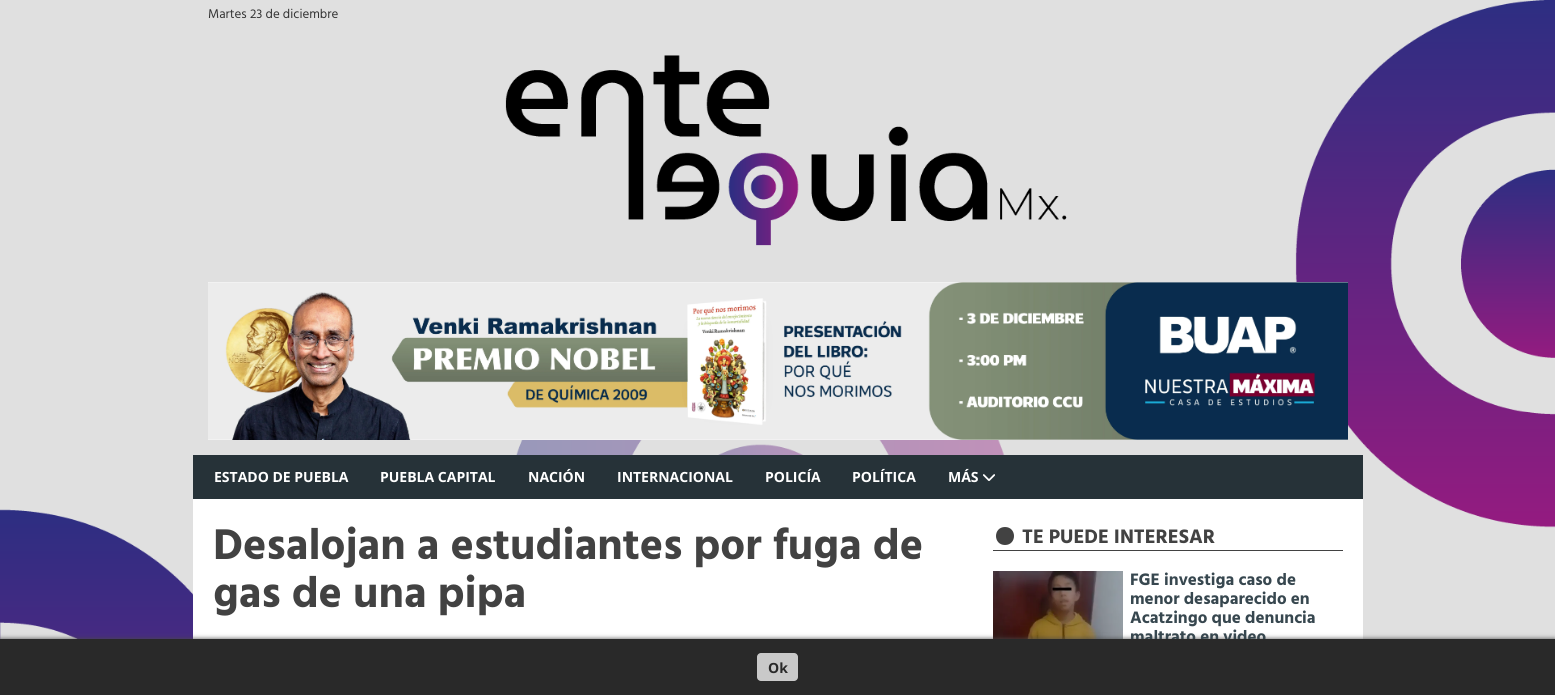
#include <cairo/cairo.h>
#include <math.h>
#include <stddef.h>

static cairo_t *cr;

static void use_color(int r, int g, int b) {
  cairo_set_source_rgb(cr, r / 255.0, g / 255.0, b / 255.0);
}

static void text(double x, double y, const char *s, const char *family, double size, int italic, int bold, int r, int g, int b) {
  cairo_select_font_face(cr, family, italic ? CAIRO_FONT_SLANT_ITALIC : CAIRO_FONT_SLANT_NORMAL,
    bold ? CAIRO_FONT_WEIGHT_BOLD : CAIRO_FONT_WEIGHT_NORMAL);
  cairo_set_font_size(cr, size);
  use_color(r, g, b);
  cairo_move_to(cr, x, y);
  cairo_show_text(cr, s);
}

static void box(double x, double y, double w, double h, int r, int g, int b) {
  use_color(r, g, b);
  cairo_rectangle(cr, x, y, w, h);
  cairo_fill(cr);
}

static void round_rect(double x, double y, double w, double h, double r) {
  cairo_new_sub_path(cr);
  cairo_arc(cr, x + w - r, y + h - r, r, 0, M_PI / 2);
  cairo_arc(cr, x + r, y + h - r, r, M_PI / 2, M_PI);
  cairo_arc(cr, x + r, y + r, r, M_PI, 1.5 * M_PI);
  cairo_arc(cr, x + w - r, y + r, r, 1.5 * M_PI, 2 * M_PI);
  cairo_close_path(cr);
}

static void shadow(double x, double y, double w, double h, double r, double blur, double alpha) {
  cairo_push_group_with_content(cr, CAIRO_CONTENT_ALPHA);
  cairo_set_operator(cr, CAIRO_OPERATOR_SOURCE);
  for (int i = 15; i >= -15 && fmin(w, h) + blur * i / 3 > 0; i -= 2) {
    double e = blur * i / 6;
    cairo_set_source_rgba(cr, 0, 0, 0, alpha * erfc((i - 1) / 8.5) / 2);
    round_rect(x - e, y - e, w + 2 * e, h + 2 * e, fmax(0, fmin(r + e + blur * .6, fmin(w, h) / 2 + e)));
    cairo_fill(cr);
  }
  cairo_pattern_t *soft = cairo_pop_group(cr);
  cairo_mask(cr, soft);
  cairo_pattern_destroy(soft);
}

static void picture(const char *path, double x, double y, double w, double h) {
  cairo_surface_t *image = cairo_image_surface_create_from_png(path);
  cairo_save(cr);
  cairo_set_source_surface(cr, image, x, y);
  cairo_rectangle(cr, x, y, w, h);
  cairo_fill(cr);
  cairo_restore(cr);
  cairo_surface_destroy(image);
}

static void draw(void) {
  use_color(224, 224, 224);
  cairo_paint(cr);
  picture("img_01.png", 0, 0, 1555, 639);
  picture("img_02.png", 505, 55, 562, 191);
  picture("img_03.png", 208, 282, 1140, 158);
  box(193, 455, 1170, 44, 38, 50, 56);
  picture("img_04.png", 983, 474, 12, 7);
  box(193, 499, 1170, 140, 255, 255, 255);
  box(993, 550, 350, 1, 66, 66, 66);
  cairo_new_path(cr);
  cairo_move_to(cr, 1005, 545);
  cairo_curve_to(cr, 1017, 545, 1017, 527, 1005, 527);
  cairo_curve_to(cr, 993, 527, 993, 545, 1005, 545);
  cairo_close_path(cr);
  cairo_fill(cr);
  picture("img_05.png", 993, 571, 130, 68);
  use_color(73, 73, 73);
  shadow(0, 639, 1555, 56, 0, 2.5, 1);
  text(208, 18, "Martes 23 de diciembre", "Hind", 13, 0, 0, 51, 51, 51);
  text(214, 482, "ESTADO DE PUEBLA", "Open Sans", 14, 0, 1, 255, 255, 255);
  text(380, 482, "PUEBLA CAPITAL", "Open Sans", 14, 0, 1, 255, 255, 255);
  text(528, 482, "NACIÓN", "Open Sans", 14, 0, 1, 255, 255, 255);
  text(617, 482, "INTERNACIONAL", "Open Sans", 14, 0, 1, 255, 255, 255);
  text(765, 482, "POLICÍA", "Open Sans", 14, 0, 1, 255, 255, 255);
  text(852, 482, "POLÍTICA", "Open Sans", 14, 0, 1, 255, 255, 255);
  text(948, 482, "MÁS", "Open Sans", 14, 0, 1, 255, 255, 255);
  text(213, 559, "Desalojan a estudiantes por fuga de", "Hind", 44, 0, 1, 66, 66, 66);
  text(213, 607, "gas de una pipa", "Hind", 44, 0, 1, 66, 66, 66);
  text(1022, 543, "TE PUEDE INTERESAR", "Hind", 20, 0, 1, 66, 66, 66);
  text(1130, 585, "FGE investiga caso de", "Hind", 17, 0, 1, 55, 71, 79);
  text(1130, 604, "menor desaparecido en", "Hind", 17, 0, 1, 55, 71, 79);
  text(1130, 623, "Acatzingo que denuncia", "Hind", 17, 0, 1, 55, 71, 79);
  text(1130, 642, "maltrato en video", "Hind", 17, 0, 1, 55, 71, 79);
  box(0, 639, 1555, 56, 41, 41, 41);
  use_color(201, 201, 201);
  round_rect(757, 653, 41, 28, 4);
  cairo_fill(cr);
  text(768, 673, "Ok", "Open Sans", 14, 0, 1, 41, 41, 41);
}

int main(void) {
  cairo_surface_t *surface = cairo_image_surface_create(CAIRO_FORMAT_RGB24, 1555, 695);
  cr = cairo_create(surface);
  cairo_font_options_t *options = cairo_font_options_create();
  cairo_font_options_set_hint_metrics(options, CAIRO_HINT_METRICS_OFF);
  cairo_font_options_set_hint_style(options, CAIRO_HINT_STYLE_NONE);
  cairo_set_font_options(cr, options);
  cairo_set_miter_limit(cr, 4);
  draw();
  cairo_surface_write_to_png(surface, "out.png");
  cairo_font_options_destroy(options);
  cairo_destroy(cr);
  cairo_surface_destroy(surface);
  return 0;
}
